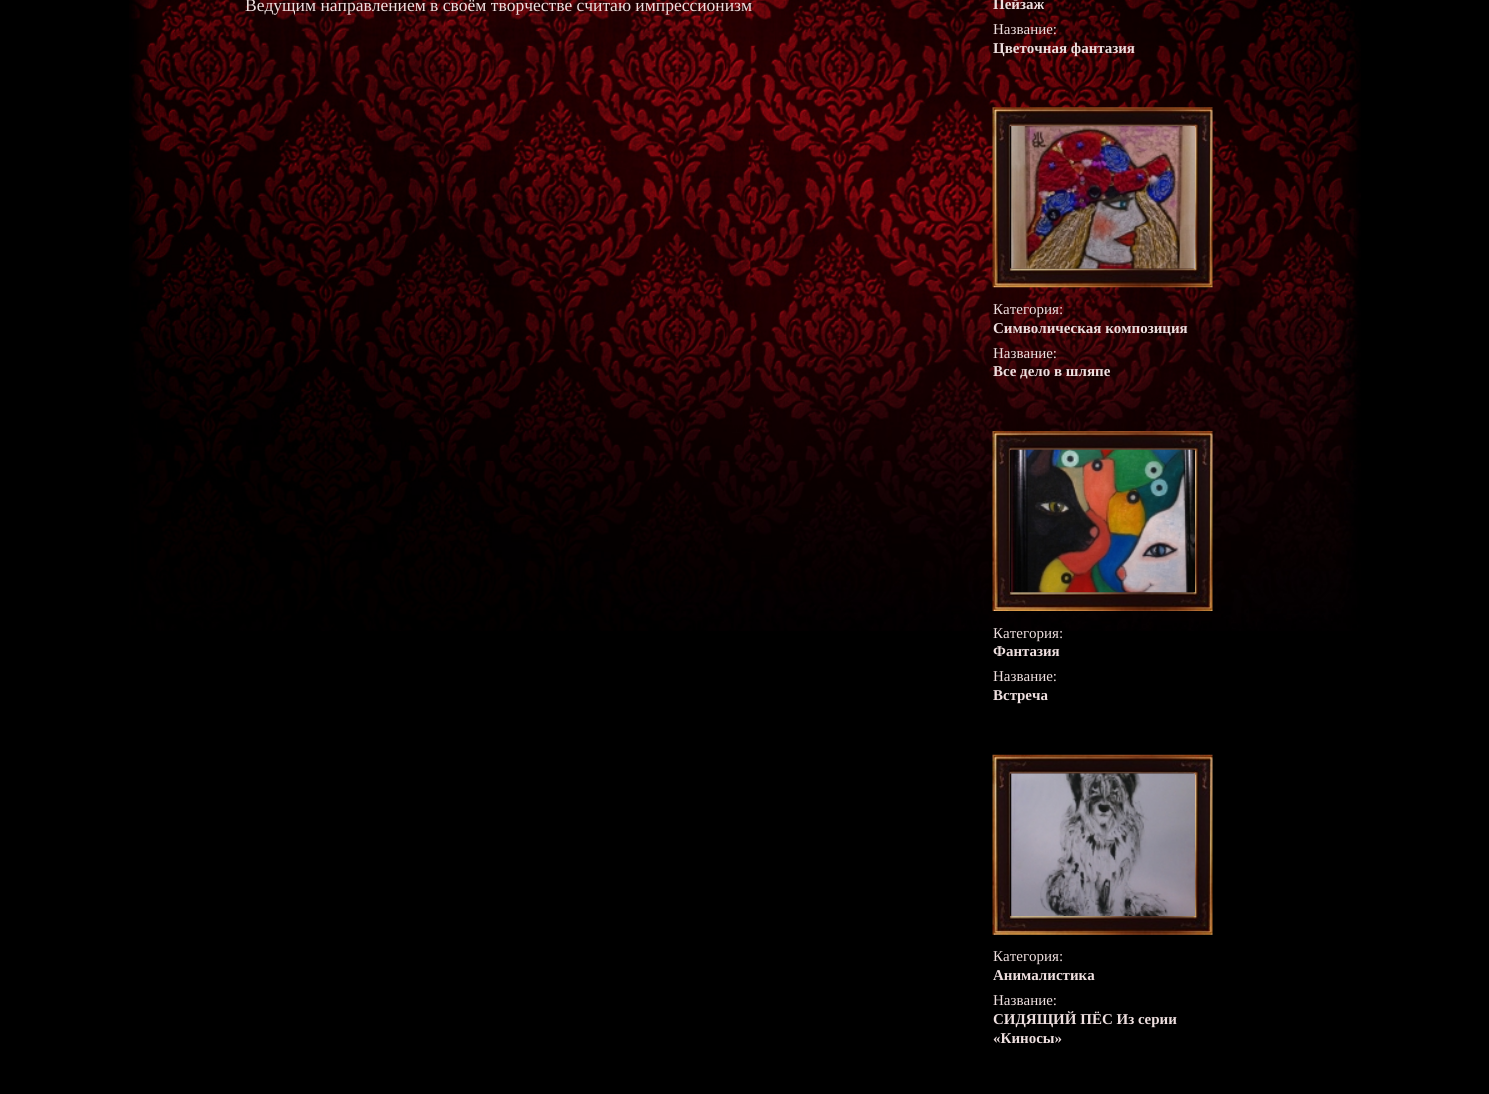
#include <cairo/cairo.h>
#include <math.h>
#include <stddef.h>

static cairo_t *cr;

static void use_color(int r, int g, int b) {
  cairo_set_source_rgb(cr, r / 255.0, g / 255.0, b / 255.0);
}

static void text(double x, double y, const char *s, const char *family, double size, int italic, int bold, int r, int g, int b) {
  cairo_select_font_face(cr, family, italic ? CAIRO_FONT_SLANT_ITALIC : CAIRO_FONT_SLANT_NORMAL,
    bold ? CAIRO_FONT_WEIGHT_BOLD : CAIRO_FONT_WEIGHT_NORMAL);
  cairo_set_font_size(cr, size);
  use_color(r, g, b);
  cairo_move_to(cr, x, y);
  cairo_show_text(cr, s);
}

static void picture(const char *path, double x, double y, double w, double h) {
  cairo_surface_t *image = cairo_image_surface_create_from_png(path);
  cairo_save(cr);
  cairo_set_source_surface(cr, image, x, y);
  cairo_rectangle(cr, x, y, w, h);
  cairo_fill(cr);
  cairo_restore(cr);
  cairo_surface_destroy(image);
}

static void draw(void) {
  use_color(0, 0, 0);
  cairo_paint(cr);
  picture("img_01.png", 129, 0, 1232, 631);
  picture("img_02.png", 992, 107, 221, 181);
  picture("img_03.png", 1011, 126, 184, 143);
  picture("img_04.png", 992, 431, 221, 180);
  picture("img_05.png", 1011, 449, 184, 144);
  picture("img_06.png", 992, 754, 221, 181);
  picture("img_07.png", 1011, 773, 184, 143);
  text(245, 11, "Ведущим направлением в своём творчестве считаю импрессионизм", "Liberation Serif", 17.5, 0, 0, 238, 223, 223);
  text(993, 9, "Пейзаж", "Liberation Serif", 15, 0, 1, 238, 223, 223);
  text(993, 34, "Название:", "Liberation Serif", 15, 0, 0, 238, 223, 223);
  text(993, 53, "Цветочная фантазия", "Liberation Serif", 15, 0, 1, 238, 223, 223);
  text(993, 314, "Категория:", "Liberation Serif", 15, 0, 0, 238, 223, 223);
  text(993, 333, "Символическая композиция", "Liberation Serif", 15, 0, 1, 238, 223, 223);
  text(993, 358, "Название:", "Liberation Serif", 15, 0, 0, 238, 223, 223);
  text(993, 376, "Все дело в шляпе", "Liberation Serif", 15, 0, 1, 238, 223, 223);
  text(993, 638, "Категория:", "Liberation Serif", 15, 0, 0, 238, 223, 223);
  text(993, 656, "Фантазия", "Liberation Serif", 15, 0, 1, 238, 223, 223);
  text(993, 681, "Название:", "Liberation Serif", 15, 0, 0, 238, 223, 223);
  text(993, 700, "Встреча", "Liberation Serif", 15, 0, 1, 238, 223, 223);
  text(993, 961, "Категория:", "Liberation Serif", 15, 0, 0, 238, 223, 223);
  text(993, 980, "Анималистика", "Liberation Serif", 15, 0, 1, 238, 223, 223);
  text(993, 1005, "Название:", "Liberation Serif", 15, 0, 0, 238, 223, 223);
  text(993, 1024, "СИДЯЩИЙ ПЁС Из серии", "Liberation Serif", 15, 0, 1, 238, 223, 223);
  text(993, 1043, "«Киносы»", "Liberation Serif", 15, 0, 1, 238, 223, 223);
}

int main(void) {
  cairo_surface_t *surface = cairo_image_surface_create(CAIRO_FORMAT_RGB24, 1489, 1094);
  cr = cairo_create(surface);
  cairo_font_options_t *options = cairo_font_options_create();
  cairo_font_options_set_hint_metrics(options, CAIRO_HINT_METRICS_OFF);
  cairo_font_options_set_hint_style(options, CAIRO_HINT_STYLE_NONE);
  cairo_set_font_options(cr, options);
  cairo_set_miter_limit(cr, 4);
  draw();
  cairo_surface_write_to_png(surface, "out.png");
  cairo_font_options_destroy(options);
  cairo_destroy(cr);
  cairo_surface_destroy(surface);
  return 0;
}
